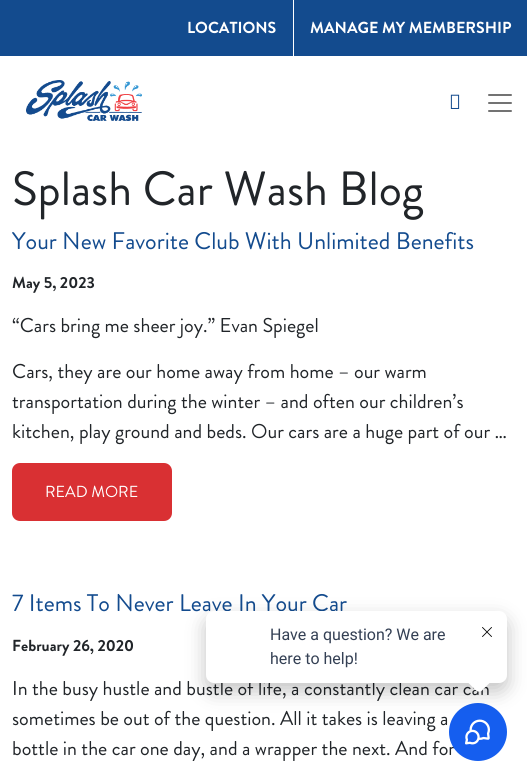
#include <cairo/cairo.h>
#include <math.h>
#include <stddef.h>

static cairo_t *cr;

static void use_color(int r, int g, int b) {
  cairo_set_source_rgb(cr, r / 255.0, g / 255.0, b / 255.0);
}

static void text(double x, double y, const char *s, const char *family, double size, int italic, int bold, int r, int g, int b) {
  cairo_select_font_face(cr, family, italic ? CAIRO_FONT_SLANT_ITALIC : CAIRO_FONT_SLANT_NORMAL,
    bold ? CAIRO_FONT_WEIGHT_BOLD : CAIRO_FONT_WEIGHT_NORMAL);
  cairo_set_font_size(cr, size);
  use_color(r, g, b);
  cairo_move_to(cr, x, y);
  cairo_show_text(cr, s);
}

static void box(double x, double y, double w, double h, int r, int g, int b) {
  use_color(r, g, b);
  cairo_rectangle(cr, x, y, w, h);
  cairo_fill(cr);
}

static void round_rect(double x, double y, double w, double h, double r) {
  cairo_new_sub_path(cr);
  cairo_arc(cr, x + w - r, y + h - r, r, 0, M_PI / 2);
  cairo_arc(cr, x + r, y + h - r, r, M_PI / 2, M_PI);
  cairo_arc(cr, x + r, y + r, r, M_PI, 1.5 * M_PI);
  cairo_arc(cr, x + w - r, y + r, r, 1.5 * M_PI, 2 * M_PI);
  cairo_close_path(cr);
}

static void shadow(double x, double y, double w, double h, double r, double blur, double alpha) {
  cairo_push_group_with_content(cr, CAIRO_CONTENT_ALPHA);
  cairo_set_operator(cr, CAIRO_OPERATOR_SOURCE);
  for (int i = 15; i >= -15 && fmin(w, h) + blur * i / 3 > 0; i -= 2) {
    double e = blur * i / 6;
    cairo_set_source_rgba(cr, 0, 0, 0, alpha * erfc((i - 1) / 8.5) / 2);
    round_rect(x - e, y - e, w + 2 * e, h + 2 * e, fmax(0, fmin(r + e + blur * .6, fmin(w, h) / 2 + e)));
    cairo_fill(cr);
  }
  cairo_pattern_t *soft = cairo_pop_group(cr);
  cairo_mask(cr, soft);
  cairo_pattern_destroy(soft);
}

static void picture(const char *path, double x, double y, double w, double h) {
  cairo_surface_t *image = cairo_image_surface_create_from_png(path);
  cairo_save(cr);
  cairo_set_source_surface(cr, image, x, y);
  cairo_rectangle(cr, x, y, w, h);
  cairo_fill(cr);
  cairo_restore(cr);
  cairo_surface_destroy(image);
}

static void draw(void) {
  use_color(255, 255, 255);
  cairo_paint(cr);
  box(0, 0, 527, 56, 19, 75, 142);
  box(293, 0, 1, 56, 255, 255, 255);
  picture("img_01.png", 26, 80, 116, 41);
  picture("img_02.png", 450, 94, 10, 15);
  picture("img_03.png", 488, 94, 24, 18);
  use_color(217, 48, 51);
  round_rect(12, 463, 160, 58, 8);
  cairo_fill(cr);
  text(187, 33, "LOCATIONS", "Brandon Grotesque", 16, 0, 1, 255, 255, 255);
  text(310, 33, "MANAGE MY MEMBERSHIP", "Brandon Grotesque", 16, 0, 1, 255, 255, 255);
  text(12, 205, "Splash Car Wash Blog", "Brandon Grotesque", 48, 0, 0, 33, 37, 41);
  text(12, 249, "Your New Favorite Club With Unlimited Benefits", "Brandon Grotesque", 24, 0, 0, 19, 75, 142);
  text(12, 288, "May 5, 2023", "Brandon Grotesque", 16, 0, 1, 33, 37, 41);
  text(12, 332, "“Cars bring me sheer joy.” Evan Spiegel", "Brandon Grotesque", 20, 0, 0, 33, 37, 41);
  text(12, 378, "Cars, they are our home away from home – our warm", "Brandon Grotesque", 20, 0, 0, 33, 37, 41);
  text(12, 408, "transportation during the winter – and often our children’s", "Brandon Grotesque", 20, 0, 0, 33, 37, 41);
  text(12, 438, "kitchen, play ground and beds. Our cars are a huge part of our …", "Brandon Grotesque", 20, 0, 0, 33, 37, 41);
  text(45, 497, "READ MORE", "Brandon Grotesque", 16, 0, 0, 255, 255, 255);
  text(12, 611, "7 Items To Never Leave In Your Car", "Brandon Grotesque", 24, 0, 0, 19, 75, 142);
  text(12, 651, "February 26, 2020", "Brandon Grotesque", 16, 0, 1, 33, 37, 41);
  text(12, 695, "In the busy hustle and bustle of life, a constantly clean car can", "Brandon Grotesque", 20, 0, 0, 33, 37, 41);
  text(12, 725, "sometimes be out of the question. All it takes is leaving a", "Brandon Grotesque", 20, 0, 0, 33, 37, 41);
  text(12, 755, "bottle in the car one day, and a wrapper the next. And for", "Brandon Grotesque", 20, 0, 0, 33, 37, 41);
  use_color(21, 94, 239);
  cairo_new_path(cr);
  cairo_arc(cr, 478, 732, 29, 0, 2 * M_PI);
  cairo_fill(cr);
  picture("img_05.png", 465, 719, 25, 26);
  use_color(0, 0, 0);
  shadow(206, 619, 301, 72, 8, 10, 0.24);
  use_color(255, 255, 255);
  round_rect(206, 611, 301, 72, 8);
  cairo_fill(cr);
  picture("img_04.png", 482, 627, 10, 10);
  text(270, 664, "here to help!", "Roboto", 16, 0, 0, 52, 64, 84);
  text(270, 640, "Have a question? We are", "Roboto", 16, 0, 0, 52, 64, 84);
  use_color(255, 255, 255);
  cairo_new_path(cr);
  cairo_move_to(cr, 482, 667.5);
  cairo_line_to(cr, 490.5, 676);
  cairo_curve_to(cr, 492, 677.5, 492, 680.5, 490.5, 682);
  cairo_line_to(cr, 482, 690.5);
  cairo_curve_to(cr, 480.5, 692, 477.5, 692, 476, 690.5);
  cairo_line_to(cr, 467.5, 682);
  cairo_curve_to(cr, 466, 680.5, 466, 677.5, 467.5, 676);
  cairo_line_to(cr, 476, 667.5);
  cairo_curve_to(cr, 477.5, 666, 480.5, 666, 482, 667.5);
  cairo_close_path(cr);
  cairo_fill(cr);
}

int main(void) {
  cairo_surface_t *surface = cairo_image_surface_create(CAIRO_FORMAT_RGB24, 527, 781);
  cr = cairo_create(surface);
  cairo_font_options_t *options = cairo_font_options_create();
  cairo_font_options_set_hint_metrics(options, CAIRO_HINT_METRICS_OFF);
  cairo_font_options_set_hint_style(options, CAIRO_HINT_STYLE_NONE);
  cairo_set_font_options(cr, options);
  cairo_set_miter_limit(cr, 4);
  draw();
  cairo_surface_write_to_png(surface, "out.png");
  cairo_font_options_destroy(options);
  cairo_destroy(cr);
  cairo_surface_destroy(surface);
  return 0;
}
